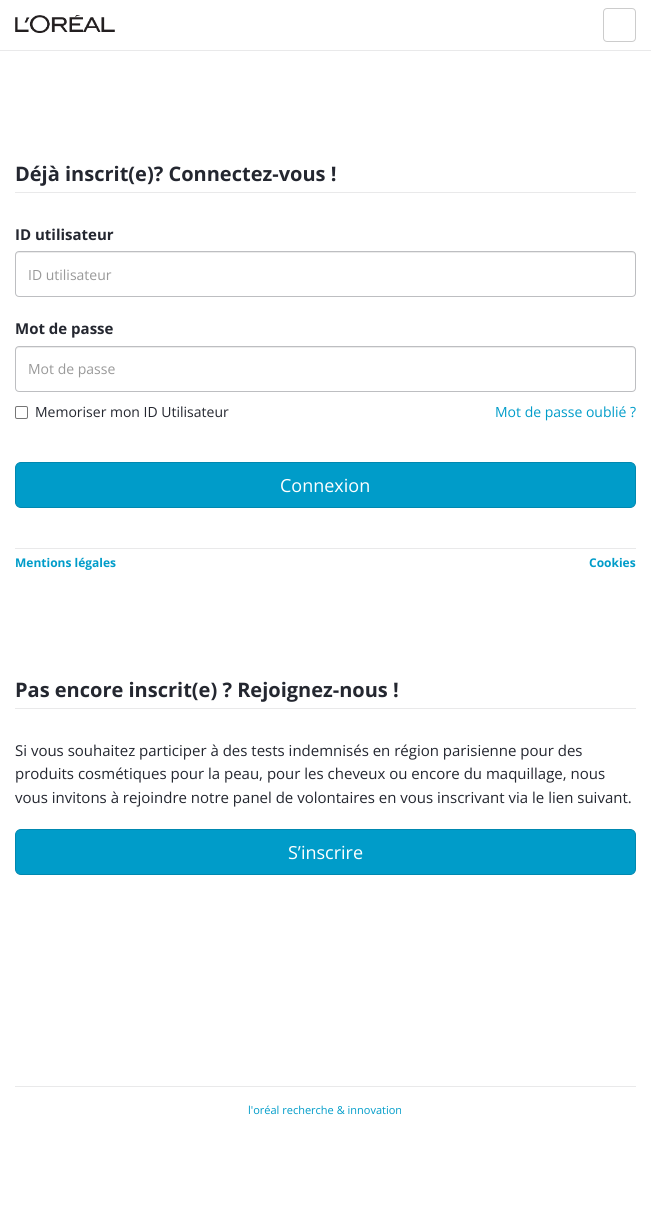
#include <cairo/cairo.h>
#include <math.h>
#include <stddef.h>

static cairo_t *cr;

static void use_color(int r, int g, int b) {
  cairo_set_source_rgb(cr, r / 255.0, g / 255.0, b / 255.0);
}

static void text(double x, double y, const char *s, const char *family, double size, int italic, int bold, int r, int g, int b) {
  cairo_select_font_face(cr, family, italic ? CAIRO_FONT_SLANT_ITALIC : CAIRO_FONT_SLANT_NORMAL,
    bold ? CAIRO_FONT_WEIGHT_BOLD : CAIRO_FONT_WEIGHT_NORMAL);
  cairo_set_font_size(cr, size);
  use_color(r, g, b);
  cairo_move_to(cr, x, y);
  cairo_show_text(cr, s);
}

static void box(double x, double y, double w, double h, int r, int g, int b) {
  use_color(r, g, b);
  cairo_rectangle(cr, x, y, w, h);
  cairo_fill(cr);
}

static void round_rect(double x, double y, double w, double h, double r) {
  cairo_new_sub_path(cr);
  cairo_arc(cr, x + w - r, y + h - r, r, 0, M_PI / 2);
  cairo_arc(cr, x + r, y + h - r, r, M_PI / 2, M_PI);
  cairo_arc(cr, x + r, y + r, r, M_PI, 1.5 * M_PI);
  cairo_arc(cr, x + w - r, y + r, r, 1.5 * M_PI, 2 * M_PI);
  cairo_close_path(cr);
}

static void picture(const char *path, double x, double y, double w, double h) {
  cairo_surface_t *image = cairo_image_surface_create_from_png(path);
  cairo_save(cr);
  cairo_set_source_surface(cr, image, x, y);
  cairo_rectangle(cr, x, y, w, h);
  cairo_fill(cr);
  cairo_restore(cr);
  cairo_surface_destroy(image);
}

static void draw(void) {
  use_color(255, 255, 255);
  cairo_paint(cr);
  box(0, 50, 651, 1, 233, 233, 234);
  picture("img_01.png", 15, 15, 100, 18);
  round_rect(603.5, 8.5, 32, 33, 3.5);
  use_color(204, 204, 204);
  cairo_set_line_width(cr, 1);
  cairo_stroke(cr);
  box(15, 192, 621, 1, 233, 233, 234);
  use_color(236, 236, 236);
  cairo_new_path(cr);
  cairo_move_to(cr, 19, 253);
  cairo_line_to(cr, 632, 253);
  cairo_curve_to(cr, 634, 253, 635, 254, 635, 256);
  cairo_line_to(cr, 635, 255);
  cairo_curve_to(cr, 635, 253, 634, 252, 632, 252);
  cairo_line_to(cr, 19, 252);
  cairo_curve_to(cr, 17, 252, 16, 253, 16, 255);
  cairo_line_to(cr, 16, 256);
  cairo_curve_to(cr, 16, 254, 17, 253, 19, 253);
  cairo_close_path(cr);
  cairo_fill(cr);
  round_rect(15.5, 251.5, 620, 45, 3.5);
  use_color(189, 190, 193);
  cairo_stroke(cr);
  use_color(236, 236, 236);
  cairo_new_path(cr);
  cairo_move_to(cr, 19, 348);
  cairo_line_to(cr, 632, 348);
  cairo_curve_to(cr, 634, 348, 635, 349, 635, 351);
  cairo_line_to(cr, 635, 350);
  cairo_curve_to(cr, 635, 348, 634, 347, 632, 347);
  cairo_line_to(cr, 19, 347);
  cairo_curve_to(cr, 17, 347, 16, 348, 16, 350);
  cairo_line_to(cr, 16, 351);
  cairo_curve_to(cr, 16, 349, 17, 348, 19, 348);
  cairo_close_path(cr);
  cairo_fill(cr);
  round_rect(15.5, 346.5, 620, 45, 3.5);
  use_color(189, 190, 193);
  cairo_stroke(cr);
  round_rect(15.5, 406.5, 12, 12, 1.5);
  use_color(118, 118, 118);
  cairo_stroke(cr);
  use_color(0, 156, 201);
  round_rect(15.5, 462.5, 620, 45, 5.5);
  cairo_fill_preserve(cr);
  use_color(0, 136, 176);
  cairo_stroke(cr);
  box(15, 548, 621, 1, 233, 233, 234);
  box(15, 708, 621, 1, 233, 233, 234);
  use_color(0, 156, 201);
  round_rect(15.5, 829.5, 620, 45, 5.5);
  cairo_fill_preserve(cr);
  use_color(0, 136, 176);
  cairo_stroke(cr);
  box(15, 1086, 621, 1, 233, 233, 234);
  text(15, 181, "Déjà inscrit(e)? Connectez-vous !", "Open Sans", 20, 0, 1, 36, 39, 48);
  text(15, 240, "ID utilisateur", "Open Sans", 15, 0, 1, 36, 39, 48);
  text(28, 280, "ID utilisateur", "Open Sans", 14, 0, 0, 153, 153, 153);
  text(15, 334, "Mot de passe", "Open Sans", 15, 0, 1, 36, 39, 48);
  text(28, 374, "Mot de passe", "Open Sans", 14, 0, 0, 153, 153, 153);
  text(35, 417, "Memoriser mon ID Utilisateur", "Open Sans", 14, 0, 0, 36, 39, 48);
  text(495, 417, "Mot de passe oublié ?", "Open Sans", 14, 0, 0, 0, 156, 201);
  text(280, 492, "Connexion", "Open Sans", 18, 0, 0, 255, 255, 255);
  text(15, 567, "Mentions légales", "Open Sans", 12, 0, 1, 0, 156, 201);
  text(589, 567, "Cookies", "Open Sans", 12, 0, 1, 0, 156, 201);
  text(15, 697, "Pas encore inscrit(e) ? Rejoignez-nous !", "Open Sans", 20, 0, 1, 36, 39, 48);
  text(15, 756, "Si vous souhaitez participer à des tests indemnisés en région parisienne pour des", "Open Sans", 15, 0, 0, 36, 39, 48);
  text(15, 779, "produits cosmétiques pour la peau, pour les cheveux ou encore du maquillage, nous", "Open Sans", 15, 0, 0, 36, 39, 48);
  text(15, 803, "vous invitons à rejoindre notre panel de volontaires en vous inscrivant via le lien suivant.", "Open Sans", 15, 0, 0, 36, 39, 48);
  text(288, 859, "S’inscrire", "Open Sans", 18, 0, 0, 255, 255, 255);
  text(248, 1114, "l'oréal recherche & innovation", "Open Sans", 11, 0, 0, 0, 156, 201);
}

int main(void) {
  cairo_surface_t *surface = cairo_image_surface_create(CAIRO_FORMAT_RGB24, 651, 1226);
  cr = cairo_create(surface);
  cairo_font_options_t *options = cairo_font_options_create();
  cairo_font_options_set_hint_metrics(options, CAIRO_HINT_METRICS_OFF);
  cairo_font_options_set_hint_style(options, CAIRO_HINT_STYLE_NONE);
  cairo_set_font_options(cr, options);
  cairo_set_miter_limit(cr, 4);
  draw();
  cairo_surface_write_to_png(surface, "out.png");
  cairo_font_options_destroy(options);
  cairo_destroy(cr);
  cairo_surface_destroy(surface);
  return 0;
}
